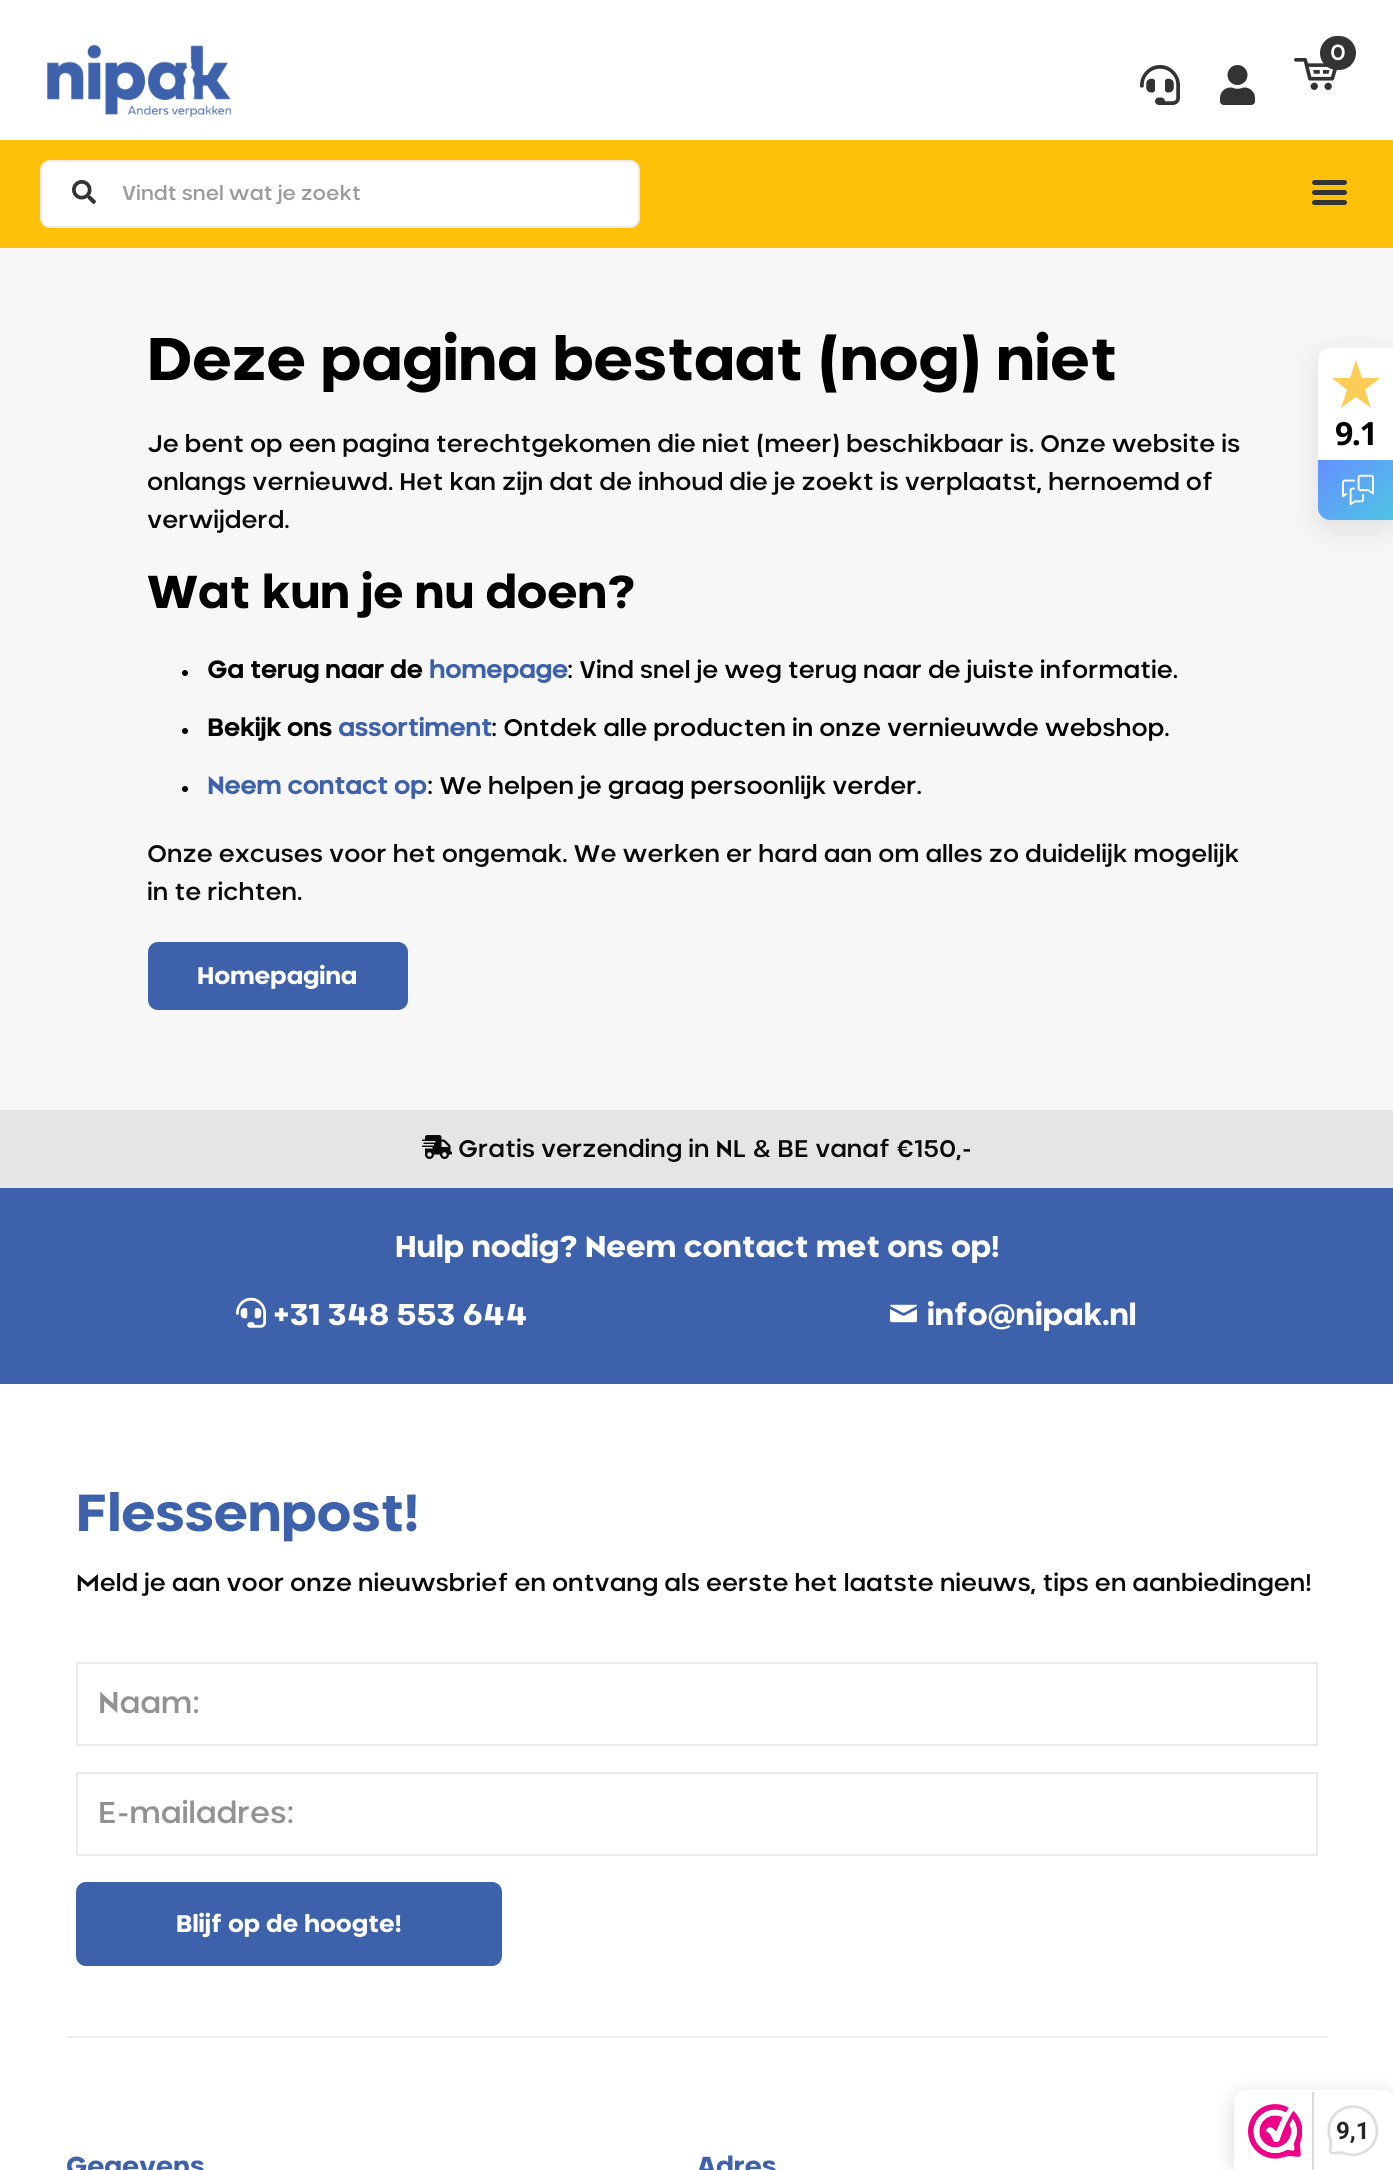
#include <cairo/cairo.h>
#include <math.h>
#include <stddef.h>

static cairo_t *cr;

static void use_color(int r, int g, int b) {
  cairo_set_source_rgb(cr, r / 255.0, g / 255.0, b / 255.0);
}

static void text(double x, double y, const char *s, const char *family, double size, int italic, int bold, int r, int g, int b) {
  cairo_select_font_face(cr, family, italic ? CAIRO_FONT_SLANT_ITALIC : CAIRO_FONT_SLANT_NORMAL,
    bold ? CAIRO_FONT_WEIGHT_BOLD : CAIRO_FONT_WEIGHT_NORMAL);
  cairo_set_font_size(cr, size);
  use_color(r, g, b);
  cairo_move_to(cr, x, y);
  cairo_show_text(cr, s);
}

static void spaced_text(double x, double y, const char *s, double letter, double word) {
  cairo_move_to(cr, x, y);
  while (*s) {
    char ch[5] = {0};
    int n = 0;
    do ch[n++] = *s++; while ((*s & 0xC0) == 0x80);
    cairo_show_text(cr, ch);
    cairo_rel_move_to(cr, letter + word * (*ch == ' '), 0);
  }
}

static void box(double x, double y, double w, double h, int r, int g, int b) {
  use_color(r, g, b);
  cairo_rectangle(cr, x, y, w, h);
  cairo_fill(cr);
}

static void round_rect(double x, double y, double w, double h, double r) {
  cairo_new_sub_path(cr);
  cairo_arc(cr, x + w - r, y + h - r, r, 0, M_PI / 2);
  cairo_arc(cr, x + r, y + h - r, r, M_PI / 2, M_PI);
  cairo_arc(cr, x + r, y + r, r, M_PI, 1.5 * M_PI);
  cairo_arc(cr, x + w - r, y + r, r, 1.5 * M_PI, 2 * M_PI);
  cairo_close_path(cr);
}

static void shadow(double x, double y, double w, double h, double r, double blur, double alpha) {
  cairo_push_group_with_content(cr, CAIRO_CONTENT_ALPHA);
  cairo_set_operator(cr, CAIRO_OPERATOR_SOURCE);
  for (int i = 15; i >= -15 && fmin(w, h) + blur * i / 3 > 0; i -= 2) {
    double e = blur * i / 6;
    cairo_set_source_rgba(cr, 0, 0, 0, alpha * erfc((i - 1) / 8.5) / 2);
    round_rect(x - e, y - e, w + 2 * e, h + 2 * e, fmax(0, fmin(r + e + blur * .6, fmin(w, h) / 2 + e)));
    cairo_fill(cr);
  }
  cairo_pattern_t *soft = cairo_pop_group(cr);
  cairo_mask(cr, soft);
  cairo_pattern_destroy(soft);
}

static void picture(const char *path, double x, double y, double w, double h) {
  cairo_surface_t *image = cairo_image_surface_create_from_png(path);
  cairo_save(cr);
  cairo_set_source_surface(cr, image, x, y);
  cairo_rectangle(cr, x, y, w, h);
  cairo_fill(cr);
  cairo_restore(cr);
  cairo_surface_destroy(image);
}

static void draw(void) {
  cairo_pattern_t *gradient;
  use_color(247, 247, 247);
  cairo_paint(cr);
  box(0, 0, 1393, 140, 255, 255, 255);
  picture("img_01.png", 47, 44, 185, 73);
  picture("img_02.png", 1294, 58, 43, 32);
  use_color(51, 51, 51);
  round_rect(1320, 36, 36, 34, 17);
  cairo_fill(cr);
  picture("img_03.png", 1140, 65, 40, 40);
  picture("img_04.png", 1220, 65, 35, 40);
  box(0, 140, 1393, 108, 255, 193, 7);
  use_color(255, 255, 255);
  round_rect(41, 161, 598, 66, 9);
  cairo_fill_preserve(cr);
  use_color(235, 235, 235);
  cairo_stroke(cr);
  picture("img_05.png", 72, 180, 24, 24);
  picture("img_06.png", 1312, 180, 35, 25);
  use_color(0, 0, 0);
  cairo_arc(cr, 185, 673, 3, 0, 2 * M_PI);
  cairo_fill(cr);
  cairo_arc(cr, 185, 731, 3, 0, 2 * M_PI);
  cairo_fill(cr);
  cairo_arc(cr, 185, 789, 3, 0, 2 * M_PI);
  cairo_fill(cr);
  use_color(61, 97, 171);
  round_rect(148, 942, 260, 68, 10);
  cairo_fill(cr);
  box(0, 1110, 1393, 78, 229, 229, 229);
  picture("img_07.png", 422, 1135, 30, 24);
  box(0, 1188, 1393, 196, 61, 97, 171);
  picture("img_08.png", 236, 1297, 30, 31);
  picture("img_09.png", 890, 1304, 27, 19);
  box(0, 1384, 1393, 714, 255, 255, 255);
  cairo_rectangle(cr, 77, 1663, 1240, 82);
  use_color(235, 235, 235);
  cairo_stroke(cr);
  cairo_rectangle(cr, 77, 1773, 1240, 82);
  cairo_stroke(cr);
  use_color(61, 97, 171);
  round_rect(76, 1882, 426, 84, 10);
  cairo_fill(cr);
  box(66, 2036, 1262, 2, 237, 237, 237);
  box(0, 2098, 1235, 72, 255, 255, 255);
  use_color(30, 30, 30);
  shadow(1318, 356, 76, 172, 12, 16, 0.12);
  use_color(255, 255, 255);
  cairo_new_path(cr);
  cairo_move_to(cr, 1330, 348);
  cairo_line_to(cr, 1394, 348);
  cairo_line_to(cr, 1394, 520);
  cairo_line_to(cr, 1330, 520);
  cairo_curve_to(cr, 1323.5, 520, 1318, 514.5, 1318, 508);
  cairo_line_to(cr, 1318, 360);
  cairo_curve_to(cr, 1318, 353.5, 1323.5, 348, 1330, 348);
  cairo_close_path(cr);
  cairo_fill(cr);
  use_color(254, 205, 88);
  cairo_new_path(cr);
  cairo_move_to(cr, 1371, 408);
  cairo_line_to(cr, 1365, 390);
  cairo_line_to(cr, 1380, 378);
  cairo_line_to(cr, 1362, 378);
  cairo_line_to(cr, 1356, 360);
  cairo_line_to(cr, 1350, 378);
  cairo_line_to(cr, 1332, 378);
  cairo_line_to(cr, 1347, 390);
  cairo_line_to(cr, 1341, 408);
  cairo_line_to(cr, 1356, 397);
  cairo_close_path(cr);
  cairo_fill(cr);
  gradient = cairo_pattern_create_linear(1324, 455, 1388, 525);
  cairo_pattern_add_color_stop_rgba(gradient, 0, 0.396, 0.565, 1, 1);
  cairo_pattern_add_color_stop_rgba(gradient, 1, 0.306, 0.773, 0.894, 1);
  cairo_set_source(cr, gradient);
  cairo_pattern_destroy(gradient);
  cairo_new_path(cr);
  cairo_move_to(cr, 1318, 460);
  cairo_line_to(cr, 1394, 460);
  cairo_line_to(cr, 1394, 520);
  cairo_line_to(cr, 1330, 520);
  cairo_curve_to(cr, 1323.5, 520, 1318, 514.5, 1318, 508);
  cairo_close_path(cr);
  cairo_fill(cr);
  picture("img_10.png", 1342, 474, 32, 32);
  use_color(0, 0, 0);
  shadow(1234, 2094, 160, 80, 12, 10, 0.15);
  use_color(255, 255, 255);
  cairo_new_path(cr);
  cairo_move_to(cr, 1246, 2090);
  cairo_line_to(cr, 1382, 2090);
  cairo_curve_to(cr, 1388.5, 2090, 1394, 2095.5, 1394, 2102);
  cairo_line_to(cr, 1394, 2170);
  cairo_line_to(cr, 1234, 2170);
  cairo_line_to(cr, 1234, 2102);
  cairo_curve_to(cr, 1234, 2095.5, 1239.5, 2090, 1246, 2090);
  cairo_close_path(cr);
  cairo_fill(cr);
  picture("img_11.png", 1248, 2104, 54, 55);
  box(1312, 2092, 2, 78, 217, 217, 217);
  picture("img_12.png", 1327, 2105, 52, 52);
  text(1330, 60, "0", "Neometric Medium", 22, 0, 0, 255, 255, 255);
  text(122, 200, "Vindt snel wat je zoekt", "Neometric Medium", 20, 0, 0, 156, 156, 156);
  text(147, 380, "Deze pagina bestaat (nog) niet", "Neometric ExtraBold", 60, 0, 0, 0, 0, 0);
  text(147, 452, "Je bent op een pagina terechtgekomen die niet (meer) beschikbaar is. Onze website is", "Neometric Medium", 24, 0, 0, 10, 10, 10);
  text(147, 490, "onlangs vernieuwd. Het kan zijn dat de inhoud die je zoekt is verplaatst, hernoemd of", "Neometric Medium", 24, 0, 0, 10, 10, 10);
  text(147, 528, "verwijderd.", "Neometric Medium", 24, 0, 0, 10, 10, 10);
  text(147, 608, "Wat kun je nu doen?", "Neometric ExtraBold", 46, 0, 0, 0, 0, 0);
  text(207, 678, "Ga terug naar de", "Neometric", 24, 0, 1, 0, 0, 0);
  text(429, 678, "homepage", "Neometric", 24, 0, 1, 61, 97, 171);
  text(567, 678, ": Vind snel je weg terug naar de juiste informatie.", "Neometric Medium", 24, 0, 0, 0, 0, 0);
  text(207, 736, "Bekijk ons", "Neometric", 24, 0, 1, 0, 0, 0);
  text(338, 736, "assortiment", "Neometric", 24, 0, 1, 61, 97, 171);
  text(491, 736, ": Ontdek alle producten in onze vernieuwde webshop.", "Neometric Medium", 24, 0, 0, 0, 0, 0);
  text(207, 794, "Neem contact op", "Neometric", 24, 0, 1, 61, 97, 171);
  text(427, 794, ": We helpen je graag persoonlijk verder.", "Neometric Medium", 24, 0, 0, 0, 0, 0);
  text(147, 862, "Onze excuses voor het ongemak. We werken er hard aan om alles zo duidelijk mogelijk", "Neometric Medium", 24, 0, 0, 10, 10, 10);
  text(147, 900, "in te richten.", "Neometric Medium", 24, 0, 0, 10, 10, 10);
  text(197, 984, "Homepagina", "Neometric ExtraBold", 24, 0, 0, 255, 255, 255);
  text(458, 1157, "Gratis verzending in NL & BE vanaf €150,-", "Neometric Medium", 24, 0, 0, 10, 10, 10);
  text(395, 1257, "Hulp nodig? Neem contact met ons op!", "Neometric ExtraBold", 30, 0, 0, 255, 255, 255);
  text(273, 1325, "+31 348 553 644", "Neometric ExtraBold", 30, 0, 0, 255, 255, 255);
  text(927, 1325, "info@nipak.nl", "Neometric ExtraBold", 30, 0, 0, 255, 255, 255);
  text(76, 1531, "Flessenpost!", "Neometric ExtraBold", 52, 0, 0, 61, 97, 171);
  text(76, 1591, "Meld je aan voor onze nieuwsbrief en ontvang als eerste het laatste nieuws, tips en aanbiedingen!", "Neometric Medium", 24, 0, 0, 10, 10, 10);
  text(98, 1713, "Naam:", "Neometric Medium", 30, 0, 0, 146, 146, 146);
  text(98, 1823, "E-mailadres:", "Neometric Medium", 30, 0, 0, 146, 146, 146);
  text(176, 1932, "Blijf op de hoogte!", "Neometric ExtraBold", 24, 0, 0, 255, 255, 255);
  text(66, 2175, "Gegevens", "Neometric ExtraBold", 26, 0, 0, 61, 97, 171);
  text(697, 2175, "Adres", "Neometric ExtraBold", 26, 0, 0, 61, 97, 171);
  cairo_select_font_face(cr, "Open Sans", CAIRO_FONT_SLANT_NORMAL, CAIRO_FONT_WEIGHT_BOLD);
  cairo_set_font_size(cr, 32);
  use_color(0, 0, 0);
  spaced_text(1335, 445, "9.1", -1.5, 0);
  text(1336, 2139, "9,1", "Roboto", 24, 0, 1, 39, 38, 38);
}

int main(void) {
  cairo_surface_t *surface = cairo_image_surface_create(CAIRO_FORMAT_RGB24, 1393, 2170);
  cr = cairo_create(surface);
  cairo_font_options_t *options = cairo_font_options_create();
  cairo_font_options_set_hint_metrics(options, CAIRO_HINT_METRICS_OFF);
  cairo_font_options_set_hint_style(options, CAIRO_HINT_STYLE_NONE);
  cairo_set_font_options(cr, options);
  cairo_set_miter_limit(cr, 4);
  draw();
  cairo_surface_write_to_png(surface, "out.png");
  cairo_font_options_destroy(options);
  cairo_destroy(cr);
  cairo_surface_destroy(surface);
  return 0;
}
